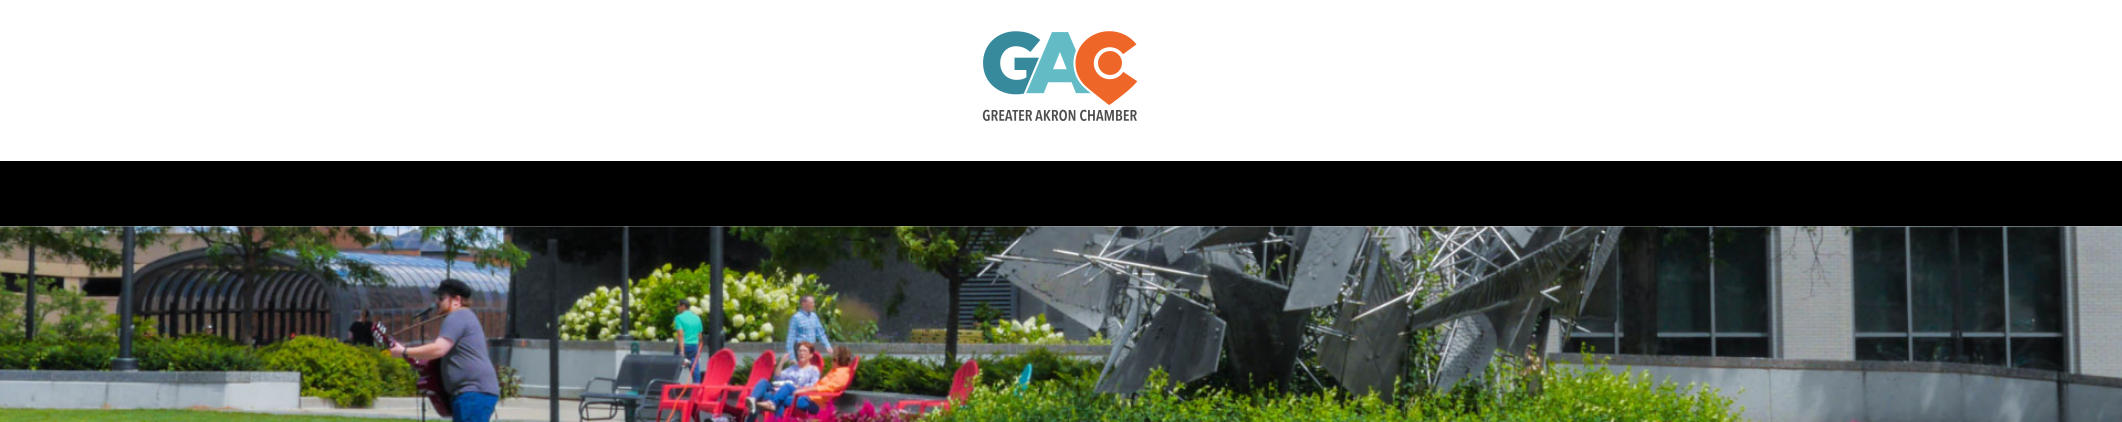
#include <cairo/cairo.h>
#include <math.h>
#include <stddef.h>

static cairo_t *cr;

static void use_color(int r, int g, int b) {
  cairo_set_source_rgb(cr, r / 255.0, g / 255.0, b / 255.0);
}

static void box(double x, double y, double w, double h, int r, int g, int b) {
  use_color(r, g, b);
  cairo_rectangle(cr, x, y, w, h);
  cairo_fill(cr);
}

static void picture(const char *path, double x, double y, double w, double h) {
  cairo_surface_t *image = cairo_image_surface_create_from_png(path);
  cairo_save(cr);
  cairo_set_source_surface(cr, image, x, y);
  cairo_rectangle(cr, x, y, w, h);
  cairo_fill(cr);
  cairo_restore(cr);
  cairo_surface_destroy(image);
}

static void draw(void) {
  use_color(255, 255, 255);
  cairo_paint(cr);
  picture("img_01.png", 982, 31, 156, 90);
  box(0, 161, 2122, 65, 0, 0, 0);
  picture("img_02.png", 0, 226, 2122, 196);
}

int main(void) {
  cairo_surface_t *surface = cairo_image_surface_create(CAIRO_FORMAT_RGB24, 2122, 422);
  cr = cairo_create(surface);
  cairo_font_options_t *options = cairo_font_options_create();
  cairo_font_options_set_hint_metrics(options, CAIRO_HINT_METRICS_OFF);
  cairo_font_options_set_hint_style(options, CAIRO_HINT_STYLE_NONE);
  cairo_set_font_options(cr, options);
  cairo_set_miter_limit(cr, 4);
  draw();
  cairo_surface_write_to_png(surface, "out.png");
  cairo_font_options_destroy(options);
  cairo_destroy(cr);
  cairo_surface_destroy(surface);
  return 0;
}
